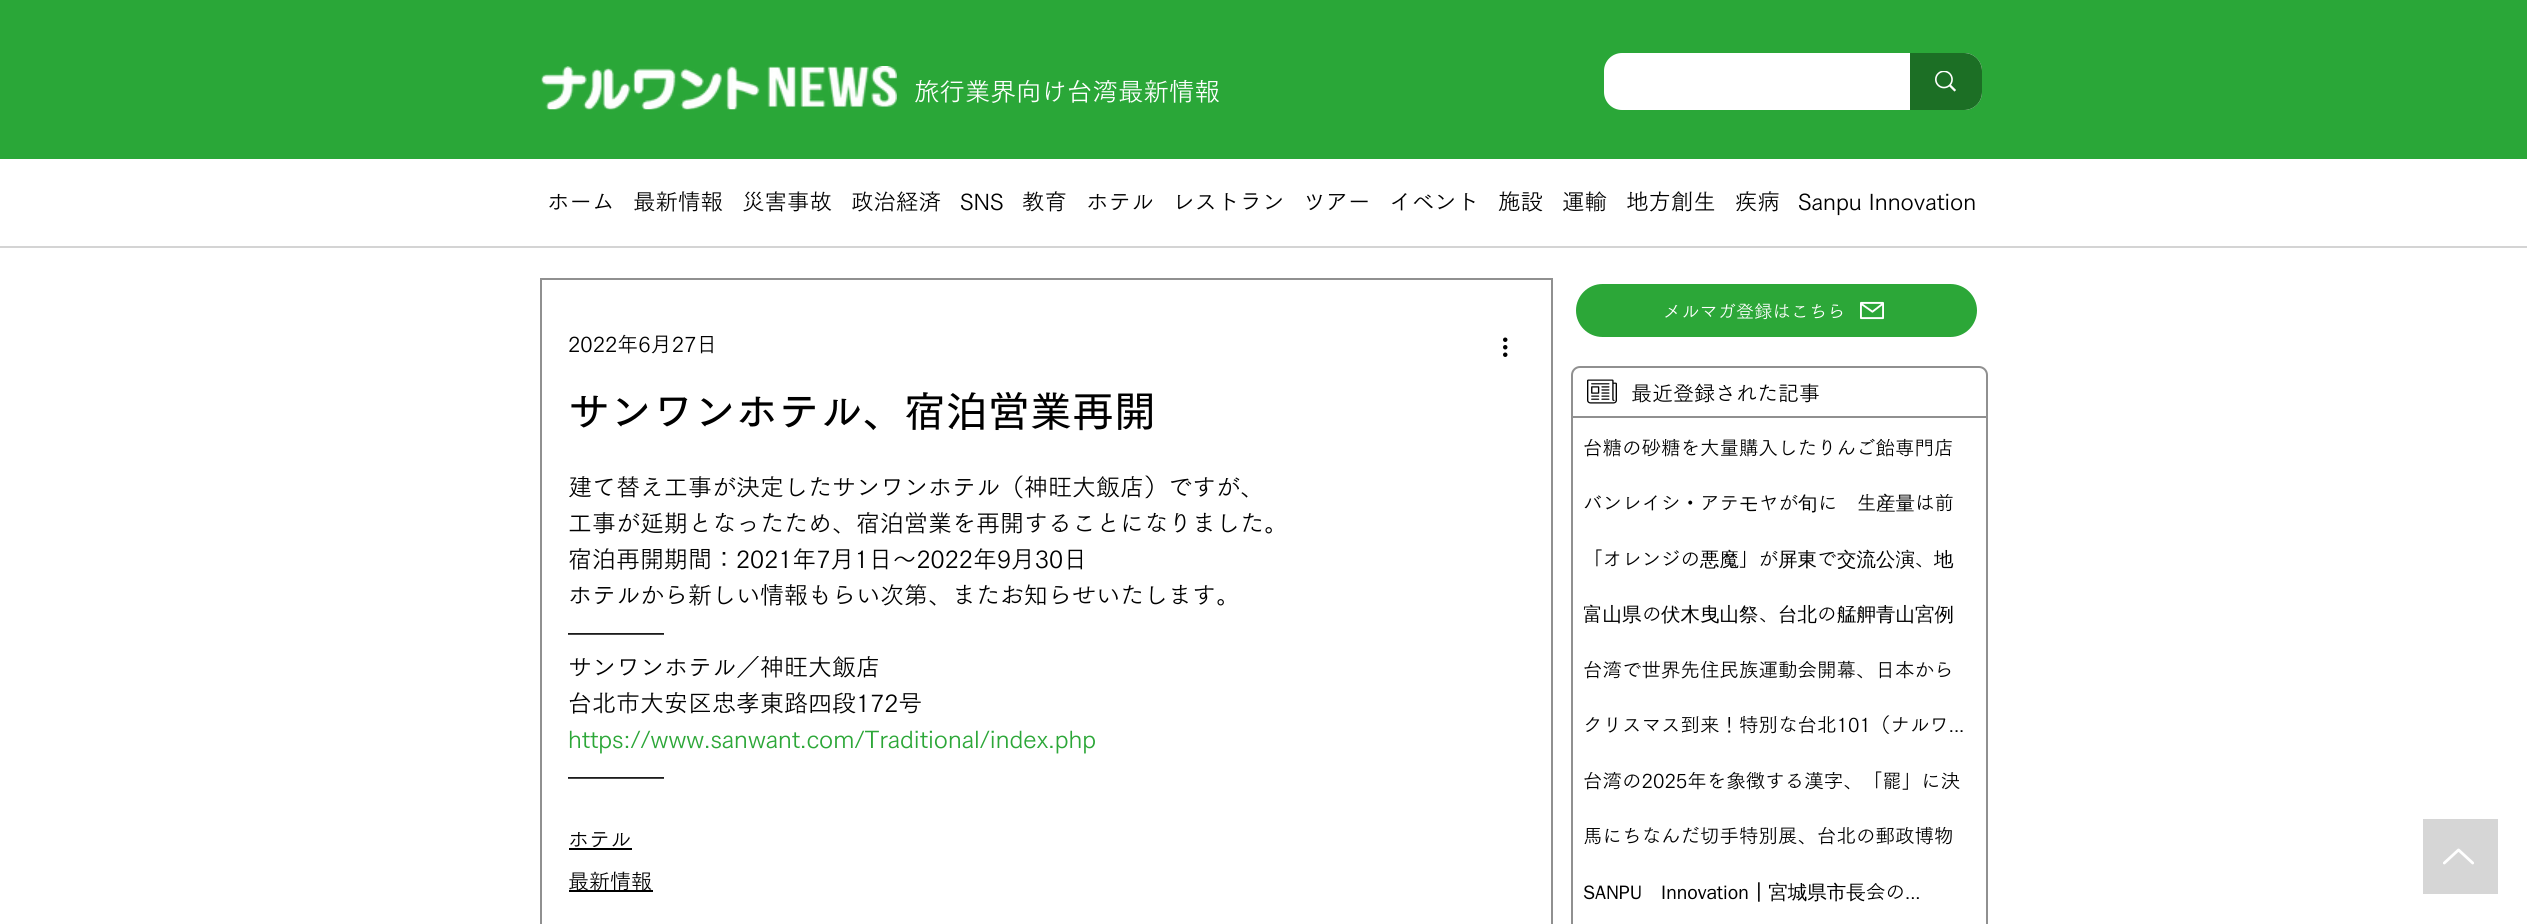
#include <cairo/cairo.h>
#include <math.h>
#include <stddef.h>

static cairo_t *cr;

static void use_color(int r, int g, int b) {
  cairo_set_source_rgb(cr, r / 255.0, g / 255.0, b / 255.0);
}

static void text(double x, double y, const char *s, const char *family, double size, int italic, int bold, int r, int g, int b) {
  cairo_select_font_face(cr, family, italic ? CAIRO_FONT_SLANT_ITALIC : CAIRO_FONT_SLANT_NORMAL,
    bold ? CAIRO_FONT_WEIGHT_BOLD : CAIRO_FONT_WEIGHT_NORMAL);
  cairo_set_font_size(cr, size);
  use_color(r, g, b);
  cairo_move_to(cr, x, y);
  cairo_show_text(cr, s);
}

static void spaced_text(double x, double y, const char *s, double letter, double word) {
  cairo_move_to(cr, x, y);
  while (*s) {
    char ch[5] = {0};
    int n = 0;
    do ch[n++] = *s++; while ((*s & 0xC0) == 0x80);
    cairo_show_text(cr, ch);
    cairo_rel_move_to(cr, letter + word * (*ch == ' '), 0);
  }
}

static void box(double x, double y, double w, double h, int r, int g, int b) {
  use_color(r, g, b);
  cairo_rectangle(cr, x, y, w, h);
  cairo_fill(cr);
}

static void round_rect(double x, double y, double w, double h, double r) {
  cairo_new_sub_path(cr);
  cairo_arc(cr, x + w - r, y + h - r, r, 0, M_PI / 2);
  cairo_arc(cr, x + r, y + h - r, r, M_PI / 2, M_PI);
  cairo_arc(cr, x + r, y + r, r, M_PI, 1.5 * M_PI);
  cairo_arc(cr, x + w - r, y + r, r, 1.5 * M_PI, 2 * M_PI);
  cairo_close_path(cr);
}

static void picture(const char *path, double x, double y, double w, double h) {
  cairo_surface_t *image = cairo_image_surface_create_from_png(path);
  cairo_save(cr);
  cairo_set_source_surface(cr, image, x, y);
  cairo_rectangle(cr, x, y, w, h);
  cairo_fill(cr);
  cairo_restore(cr);
  cairo_surface_destroy(image);
}

static void draw(void) {
  use_color(255, 255, 255);
  cairo_paint(cr);
  box(0, 0, 2527, 159, 42, 167, 56);
  box(0, 246, 2527, 2, 212, 212, 212);
  picture("img_01.png", 541, 66, 356, 44);
  use_color(255, 255, 255);
  round_rect(1604, 53, 378, 57, 18);
  cairo_fill(cr);
  use_color(28, 111, 37);
  cairo_new_path(cr);
  cairo_move_to(cr, 1910, 53);
  cairo_line_to(cr, 1964, 53);
  cairo_curve_to(cr, 1974, 53, 1982, 61, 1982, 71);
  cairo_line_to(cr, 1982, 92);
  cairo_curve_to(cr, 1982, 102, 1974, 110, 1964, 110);
  cairo_line_to(cr, 1910, 110);
  cairo_close_path(cr);
  cairo_fill(cr);
  picture("img_02.png", 1935, 71, 21, 21);
  use_color(44, 167, 56);
  round_rect(1575, 283, 403, 55, 27.5);
  cairo_fill_preserve(cr);
  use_color(255, 255, 255);
  cairo_stroke(cr);
  picture("img_03.png", 1860, 301, 24, 19);
  cairo_rectangle(cr, 541, 279, 1011, 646);
  use_color(144, 144, 144);
  cairo_stroke(cr);
  picture("img_04.png", 1503, 337, 5, 20);
  box(569, 848, 63, 2, 0, 0, 0);
  box(569, 890, 84, 2, 0, 0, 0);
  round_rect(1572, 367, 415, 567, 8);
  use_color(144, 144, 144);
  cairo_stroke(cr);
  picture("img_05.png", 1587, 379, 30, 25);
  box(1571, 416, 417, 2, 144, 144, 144);
  box(2423, 819, 75, 75, 214, 214, 214);
  picture("img_06.png", 2443, 848, 31, 17);
  text(914, 101, "旅行業界向け台湾最新情報", "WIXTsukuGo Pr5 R", 25.5, 0, 0, 255, 255, 255);
  text(547, 210, "ホーム", "WIXTsukuGo Pr5 R", 22.5, 0, 0, 0, 0, 0);
  text(633, 210, "最新情報", "WIXTsukuGo Pr5 R", 22.5, 0, 0, 0, 0, 0);
  text(742, 210, "災害事故", "WIXTsukuGo Pr5 R", 22.5, 0, 0, 0, 0, 0);
  text(851, 210, "政治経済", "WIXTsukuGo Pr5 R", 22.5, 0, 0, 0, 0, 0);
  text(960, 210, "SNS", "WIXTsukuGo Pr5 R", 22.5, 0, 0, 0, 0, 0);
  text(1022, 210, "教育", "WIXTsukuGo Pr5 R", 22.5, 0, 0, 0, 0, 0);
  text(1086, 210, "ホテル", "WIXTsukuGo Pr5 R", 22.5, 0, 0, 0, 0, 0);
  text(1172, 210, "レストラン", "WIXTsukuGo Pr5 R", 22.5, 0, 0, 0, 0, 0);
  text(1303, 210, "ツアー", "WIXTsukuGo Pr5 R", 22.5, 0, 0, 0, 0, 0);
  text(1389, 210, "イベント", "WIXTsukuGo Pr5 R", 22.5, 0, 0, 0, 0, 0);
  text(1498, 210, "施設", "WIXTsukuGo Pr5 R", 22.5, 0, 0, 0, 0, 0);
  text(1562, 210, "運輸", "WIXTsukuGo Pr5 R", 22.5, 0, 0, 0, 0, 0);
  text(1626, 210, "地方創生", "WIXTsukuGo Pr5 R", 22.5, 0, 0, 0, 0, 0);
  text(1735, 210, "疾病", "WIXTsukuGo Pr5 R", 22.5, 0, 0, 0, 0, 0);
  text(1798, 210, "Sanpu Innovation", "WIXTsukuGo Pr5 R", 22.5, 0, 0, 0, 0, 0);
  cairo_set_font_size(cr, 18);
  use_color(255, 255, 255);
  spaced_text(1663, 318, "メルマガ登録はこちら", 0.25, 0);
  text(568, 352, "2022年6月27日", "WIXTsukuGo Pr5 R", 21, 0, 0, 0, 0, 0);
  text(568, 427, "サンワンホテル、宿泊営業再開", "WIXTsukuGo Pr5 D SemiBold", 42, 0, 0, 0, 0, 0);
  text(568, 496, "建て替え工事が決定したサンワンホテル（神旺大飯店）ですが、", "WIXTsukuGo Pr5 R", 24, 0, 0, 0, 0, 0);
  text(568, 532, "工事が延期となったため、宿泊営業を再開することになりました。", "WIXTsukuGo Pr5 R", 24, 0, 0, 0, 0, 0);
  text(568, 568, "宿泊再開期間：2021年7月1日～2022年9月30日", "WIXTsukuGo Pr5 R", 24, 0, 0, 0, 0, 0);
  text(568, 604, "ホテルから新しい情報もらい次第、またお知らせいたします。", "WIXTsukuGo Pr5 R", 24, 0, 0, 0, 0, 0);
  text(568, 640, "————", "Liberation Sans", 24, 0, 0, 0, 0, 0);
  text(568, 676, "サンワンホテル／神旺大飯店", "WIXTsukuGo Pr5 R", 24, 0, 0, 0, 0, 0);
  text(568, 712, "台北市大安区忠孝東路四段172号", "WIXTsukuGo Pr5 R", 24, 0, 0, 0, 0, 0);
  text(568, 748, "https://www.sanwant.com/Traditional/index.php", "WIXTsukuGo Pr5 R", 24, 0, 0, 44, 167, 56);
  text(568, 784, "————", "Liberation Sans", 24, 0, 0, 0, 0, 0);
  text(568, 847, "ホテル", "WIXTsukuGo Pr5 R", 21, 0, 0, 0, 0, 0);
  text(568, 889, "最新情報", "WIXTsukuGo Pr5 R", 21, 0, 0, 0, 0, 0);
  text(1631, 401, "最近登録された記事", "WIXTsukuGo Pr5 R", 21, 0, 0, 0, 0, 0);
  text(1583, 455, "台糖の砂糖を大量購入したりんご飴専門店", "WIXTsukuGo Pr5 R", 19.5, 0, 0, 0, 0, 0);
  text(1583, 510, "バンレイシ・アテ", "WIXTsukuGo Pr5 R", 19.5, 0, 0, 0, 0, 0);
  text(1739, 510, "モ", "WenQuanYi Zen Hei Medium", 19.5, 0, 0, 0, 0, 0);
  text(1759, 510, "ヤが", "WIXTsukuGo Pr5 R", 19.5, 0, 0, 0, 0, 0);
  text(1798, 510, "旬", "WenQuanYi Zen Hei Medium", 19.5, 0, 0, 0, 0, 0);
  text(1818, 510, "に", "WIXTsukuGo Pr5 R", 19.5, 0, 0, 0, 0, 0);
  text(1857, 510, "生", "WIXTsukuGo Pr5 R", 19.5, 0, 0, 0, 0, 0);
  text(1876, 510, "産量", "WenQuanYi Zen Hei Medium", 19.5, 0, 0, 0, 0, 0);
  text(1915, 510, "は前", "WIXTsukuGo Pr5 R", 19.5, 0, 0, 0, 0, 0);
  text(1583, 566, "「オレンジの", "WIXTsukuGo Pr5 R", 19.5, 0, 0, 0, 0, 0);
  text(1700, 566, "悪魔", "WenQuanYi Zen Hei Medium", 19.5, 0, 0, 0, 0, 0);
  text(1739, 566, "」が", "WIXTsukuGo Pr5 R", 19.5, 0, 0, 0, 0, 0);
  text(1778, 566, "屏東", "WenQuanYi Zen Hei Medium", 19.5, 0, 0, 0, 0, 0);
  text(1817, 566, "で", "WIXTsukuGo Pr5 R", 19.5, 0, 0, 0, 0, 0);
  text(1837, 566, "交流公演", "WenQuanYi Zen Hei Medium", 19.5, 0, 0, 0, 0, 0);
  text(1915, 566, "、", "WIXTsukuGo Pr5 R", 19.5, 0, 0, 0, 0, 0);
  text(1934, 566, "地", "WenQuanYi Zen Hei Medium", 19.5, 0, 0, 0, 0, 0);
  cairo_save(cr);
  cairo_rectangle(cr, 1584, 602, 384, 27);
  cairo_clip(cr);
  text(1583, 621, "富山県", "WenQuanYi Zen Hei Medium", 19.5, 0, 0, 0, 0, 0);
  cairo_restore(cr);
  text(1642, 621, "の", "WIXTsukuGo Pr5 R", 19.5, 0, 0, 0, 0, 0);
  text(1661, 621, "伏木曳山祭", "WenQuanYi Zen Hei Medium", 19.5, 0, 0, 0, 0, 0);
  text(1759, 621, "、", "WIXTsukuGo Pr5 R", 19.5, 0, 0, 0, 0, 0);
  text(1778, 621, "台北", "WenQuanYi Zen Hei Medium", 19.5, 0, 0, 0, 0, 0);
  text(1817, 621, "の", "WIXTsukuGo Pr5 R", 19.5, 0, 0, 0, 0, 0);
  text(1837, 621, "艋舺青山宮例", "WenQuanYi Zen Hei Medium", 19.5, 0, 0, 0, 0, 0);
  text(1583, 677, "台湾で世界先住民族運動会開幕、日本から", "WIXTsukuGo Pr5 R", 19.5, 0, 0, 0, 0, 0);
  text(1583, 732, "クリスマス到来！特別な台北101（ナルワ...", "WIXTsukuGo Pr5 R", 19.5, 0, 0, 0, 0, 0);
  text(1583, 788, "台湾の2025年を象徴する漢字、「罷」に決", "WIXTsukuGo Pr5 R", 19.5, 0, 0, 0, 0, 0);
  text(1583, 843, "馬にちなんだ切手特別展、台北の郵政博物", "WIXTsukuGo Pr5 R", 19.5, 0, 0, 0, 0, 0);
  cairo_select_font_face(cr, "WenQuanYi Zen Hei Medium", CAIRO_FONT_SLANT_NORMAL, CAIRO_FONT_WEIGHT_NORMAL);
  spaced_text(1583, 899, "SANPU Innovation┃宮城県市長", 0, 13);
  text(1866, 899, "会の...", "WIXTsukuGo Pr5 R", 19.5, 0, 0, 0, 0, 0);
}

int main(void) {
  cairo_surface_t *surface = cairo_image_surface_create(CAIRO_FORMAT_RGB24, 2527, 924);
  cr = cairo_create(surface);
  cairo_font_options_t *options = cairo_font_options_create();
  cairo_font_options_set_hint_metrics(options, CAIRO_HINT_METRICS_OFF);
  cairo_font_options_set_hint_style(options, CAIRO_HINT_STYLE_NONE);
  cairo_set_font_options(cr, options);
  cairo_set_miter_limit(cr, 4);
  draw();
  cairo_surface_write_to_png(surface, "out.png");
  cairo_font_options_destroy(options);
  cairo_destroy(cr);
  cairo_surface_destroy(surface);
  return 0;
}
